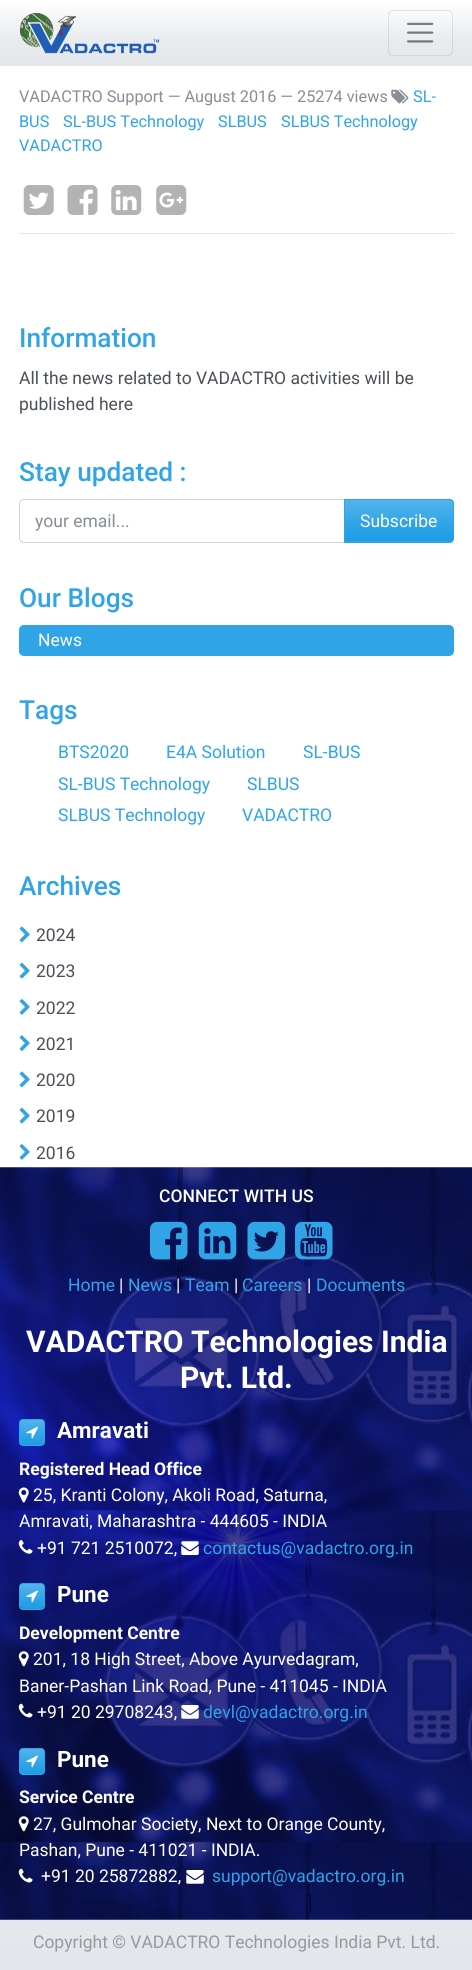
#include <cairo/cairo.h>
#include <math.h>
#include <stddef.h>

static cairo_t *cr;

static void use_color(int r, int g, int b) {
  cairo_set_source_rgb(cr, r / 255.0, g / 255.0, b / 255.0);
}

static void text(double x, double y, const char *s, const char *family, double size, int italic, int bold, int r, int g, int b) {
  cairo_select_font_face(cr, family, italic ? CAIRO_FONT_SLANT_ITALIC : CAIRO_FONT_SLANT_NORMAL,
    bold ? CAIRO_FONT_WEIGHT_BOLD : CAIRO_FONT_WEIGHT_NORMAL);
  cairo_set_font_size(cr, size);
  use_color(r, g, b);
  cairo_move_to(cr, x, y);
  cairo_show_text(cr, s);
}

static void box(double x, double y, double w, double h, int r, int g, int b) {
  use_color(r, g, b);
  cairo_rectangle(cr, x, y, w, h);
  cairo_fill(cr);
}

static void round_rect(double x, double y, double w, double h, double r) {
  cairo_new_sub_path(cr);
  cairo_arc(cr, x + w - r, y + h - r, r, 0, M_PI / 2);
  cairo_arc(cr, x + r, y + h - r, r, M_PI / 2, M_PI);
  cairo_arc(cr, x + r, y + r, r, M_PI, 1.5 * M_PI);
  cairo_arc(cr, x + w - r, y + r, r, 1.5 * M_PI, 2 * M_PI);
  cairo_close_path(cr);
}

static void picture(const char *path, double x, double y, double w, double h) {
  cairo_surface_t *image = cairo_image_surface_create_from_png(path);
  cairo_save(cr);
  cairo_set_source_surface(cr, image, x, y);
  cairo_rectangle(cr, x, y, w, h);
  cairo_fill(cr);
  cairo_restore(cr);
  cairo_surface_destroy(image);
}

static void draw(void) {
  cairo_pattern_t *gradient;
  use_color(255, 255, 255);
  cairo_paint(cr);
  gradient = cairo_pattern_create_linear(236, 0, 236, 66);
  cairo_pattern_add_color_stop_rgba(gradient, 0, 1, 1, 1, 1);
  cairo_pattern_add_color_stop_rgba(gradient, 0.6, 0.914, 0.925, 0.937, 1);
  cairo_pattern_add_color_stop_rgba(gradient, 1, 0.89, 0.906, 0.922, 1);
  cairo_set_source(cr, gradient);
  cairo_pattern_destroy(gradient);
  cairo_rectangle(cr, 0, 5, 472, 61);
  cairo_fill(cr);
  picture("img_01.png", 20, 12, 139, 42);
  round_rect(388.5, 10.5, 64, 45, 4.5);
  cairo_set_source_rgba(cr, 0, 0, 0, 0.1);
  cairo_set_line_width(cr, 1);
  cairo_stroke(cr);
  picture("img_02.png", 407, 22, 27, 21);
  picture("img_03.png", 391, 89, 18, 15);
  picture("img_04.png", 23, 185, 31, 30);
  picture("img_05.png", 67, 185, 31, 30);
  picture("img_06.png", 111, 185, 31, 30);
  picture("img_07.png", 156, 185, 31, 30);
  box(19, 233, 435, 1, 230, 230, 230);
  cairo_new_path(cr);
  cairo_move_to(cr, 24, 499.5);
  cairo_line_to(cr, 345.5, 499.5);
  cairo_line_to(cr, 345.5, 542.5);
  cairo_line_to(cr, 24, 542.5);
  cairo_curve_to(cr, 21.5, 542.5, 19.5, 540.5, 19.5, 538);
  cairo_line_to(cr, 19.5, 504);
  cairo_curve_to(cr, 19.5, 501.5, 21.5, 499.5, 24, 499.5);
  cairo_close_path(cr);
  use_color(206, 212, 218);
  cairo_stroke(cr);
  use_color(47, 164, 231);
  cairo_new_path(cr);
  cairo_move_to(cr, 344, 499);
  cairo_line_to(cr, 449, 499);
  cairo_curve_to(cr, 452, 499, 454, 501, 454, 504);
  cairo_line_to(cr, 454, 538);
  cairo_curve_to(cr, 454, 541, 452, 543, 449, 543);
  cairo_line_to(cr, 344, 543);
  cairo_close_path(cr);
  cairo_fill(cr);
  gradient = cairo_pattern_create_linear(399, 500, 399, 541);
  cairo_pattern_add_color_stop_rgba(gradient, 0, 0.329, 0.706, 0.922, 1);
  cairo_pattern_add_color_stop_rgba(gradient, 0.6, 0.184, 0.643, 0.906, 1);
  cairo_pattern_add_color_stop_rgba(gradient, 1, 0.114, 0.612, 0.898, 1);
  cairo_set_source(cr, gradient);
  cairo_pattern_destroy(gradient);
  cairo_rectangle(cr, 345, 500, 108, 41);
  cairo_fill(cr);
  cairo_new_path(cr);
  cairo_move_to(cr, 344.5, 499.5);
  cairo_line_to(cr, 449, 499.5);
  cairo_curve_to(cr, 451.5, 499.5, 453.5, 501.5, 453.5, 504);
  cairo_line_to(cr, 453.5, 538);
  cairo_curve_to(cr, 453.5, 540.5, 451.5, 542.5, 449, 542.5);
  cairo_line_to(cr, 344.5, 542.5);
  cairo_close_path(cr);
  use_color(47, 164, 231);
  cairo_stroke(cr);
  round_rect(19, 625, 435, 31, 5);
  cairo_fill(cr);
  picture("img_08.png", 19, 926, 11, 17);
  picture("img_09.png", 19, 962, 11, 17);
  picture("img_10.png", 19, 999, 11, 16);
  picture("img_11.png", 19, 1035, 11, 16);
  picture("img_08.png", 19, 1071, 11, 17);
  picture("img_09.png", 19, 1107, 11, 17);
  picture("img_10.png", 19, 1144, 11, 16);
  gradient = cairo_pattern_create_linear(236, 1166, 236, 1970);
  cairo_pattern_add_color_stop_rgba(gradient, 0, 1, 1, 1, 1);
  cairo_pattern_add_color_stop_rgba(gradient, 0.6, 0.914, 0.925, 0.937, 1);
  cairo_pattern_add_color_stop_rgba(gradient, 1, 0.89, 0.906, 0.922, 1);
  cairo_set_source(cr, gradient);
  cairo_pattern_destroy(gradient);
  cairo_rectangle(cr, 0, 1221, 472, 749);
  cairo_fill(cr);
  picture("img_12.png", 0, 1167, 472, 753);
  picture("img_13.png", 150, 1221, 38, 39);
  picture("img_14.png", 198, 1221, 39, 39);
  picture("img_15.png", 247, 1221, 38, 39);
  picture("img_16.png", 295, 1221, 38, 39);
  cairo_save(cr);
  round_rect(19, 1419, 26, 27, 4);
  cairo_clip(cr);
  gradient = cairo_pattern_create_linear(32, 1420, 32, 1445);
  cairo_pattern_add_color_stop_rgba(gradient, 0, 0.329, 0.706, 0.922, 1);
  cairo_pattern_add_color_stop_rgba(gradient, 0.6, 0.184, 0.643, 0.906, 1);
  cairo_pattern_add_color_stop_rgba(gradient, 1, 0.114, 0.612, 0.898, 1);
  cairo_set_source(cr, gradient);
  cairo_pattern_destroy(gradient);
  cairo_rectangle(cr, 20, 1420, 24, 25);
  cairo_fill(cr);
  cairo_restore(cr);
  round_rect(19.5, 1419.5, 25, 26, 3.5);
  use_color(47, 164, 231);
  cairo_stroke(cr);
  picture("img_17.png", 26, 1426, 12, 13);
  picture("img_18.png", 18, 1487, 11, 16);
  picture("img_19.png", 18, 1540, 15, 14);
  picture("img_20.png", 181, 1541, 18, 14);
  cairo_save(cr);
  round_rect(19, 1583, 26, 27, 4);
  cairo_clip(cr);
  gradient = cairo_pattern_create_linear(32, 1584, 32, 1609);
  cairo_pattern_add_color_stop_rgba(gradient, 0, 0.329, 0.706, 0.922, 1);
  cairo_pattern_add_color_stop_rgba(gradient, 0.6, 0.184, 0.643, 0.906, 1);
  cairo_pattern_add_color_stop_rgba(gradient, 1, 0.114, 0.612, 0.898, 1);
  cairo_set_source(cr, gradient);
  cairo_pattern_destroy(gradient);
  cairo_rectangle(cr, 20, 1584, 24, 25);
  cairo_fill(cr);
  cairo_restore(cr);
  round_rect(19.5, 1583.5, 25, 26, 3.5);
  cairo_stroke(cr);
  picture("img_21.png", 26, 1590, 12, 13);
  picture("img_22.png", 18, 1651, 11, 16);
  picture("img_23.png", 18, 1703, 15, 15);
  picture("img_24.png", 181, 1705, 18, 14);
  cairo_save(cr);
  round_rect(19, 1748, 26, 27, 4);
  cairo_clip(cr);
  gradient = cairo_pattern_create_linear(32, 1749, 32, 1774);
  cairo_pattern_add_color_stop_rgba(gradient, 0, 0.329, 0.706, 0.922, 1);
  cairo_pattern_add_color_stop_rgba(gradient, 0.6, 0.184, 0.643, 0.906, 1);
  cairo_pattern_add_color_stop_rgba(gradient, 1, 0.114, 0.612, 0.898, 1);
  cairo_set_source(cr, gradient);
  cairo_pattern_destroy(gradient);
  cairo_rectangle(cr, 20, 1749, 24, 25);
  cairo_fill(cr);
  cairo_restore(cr);
  round_rect(19.5, 1748.5, 25, 26, 3.5);
  cairo_stroke(cr);
  picture("img_21.png", 26, 1755, 12, 13);
  picture("img_25.png", 18, 1816, 11, 16);
  picture("img_26.png", 18, 1868, 15, 15);
  picture("img_27.png", 186, 1870, 18, 14);
  text(19, 102, "VADACTRO Support — August 2016 — 25274 views", "Roboto", 16.25, 0, 0, 134, 142, 150);
  text(413, 102, "SL-", "Roboto", 16.25, 0, 0, 47, 164, 231);
  text(19, 127, "BUS", "Roboto", 16.25, 0, 0, 47, 164, 231);
  text(63, 127, "SL-BUS Technology", "Roboto", 16.25, 0, 0, 47, 164, 231);
  text(218, 127, "SLBUS", "Roboto", 16.25, 0, 0, 47, 164, 231);
  text(281, 127, "SLBUS Technology", "Roboto", 16.25, 0, 0, 47, 164, 231);
  text(19, 151, "VADACTRO", "Roboto", 16.25, 0, 0, 47, 164, 231);
  text(19, 347, "Information", "Roboto Medium", 26.25, 0, 0, 47, 164, 231);
  text(19, 384, "All the news related to VADACTRO activities will be", "Roboto", 17.5, 0, 0, 73, 80, 87);
  text(19, 410, "published here", "Roboto", 17.5, 0, 0, 73, 80, 87);
  text(19, 481, "Stay updated :", "Roboto Medium", 26.25, 0, 0, 47, 164, 231);
  text(35, 527, "your email...", "Roboto", 17.5, 0, 0, 134, 142, 150);
  text(360, 527, "Subscribe", "Roboto", 17.5, 0, 0, 255, 255, 255);
  text(19, 607, "Our Blogs", "Roboto Medium", 26.25, 0, 0, 47, 164, 231);
  text(38, 646, "News", "Roboto", 17.5, 0, 0, 255, 255, 255);
  text(19, 719, "Tags", "Roboto Medium", 26.25, 0, 0, 47, 164, 231);
  text(58, 758, "BTS2020", "Roboto", 17.5, 0, 0, 47, 164, 231);
  text(166, 758, "E4A Solution", "Roboto", 17.5, 0, 0, 47, 164, 231);
  text(303, 758, "SL-BUS", "Roboto", 17.5, 0, 0, 47, 164, 231);
  text(58, 790, "SL-BUS Technology", "Roboto", 17.5, 0, 0, 47, 164, 231);
  text(247, 790, "SLBUS", "Roboto", 17.5, 0, 0, 47, 164, 231);
  text(58, 821, "SLBUS Technology", "Roboto", 17.5, 0, 0, 47, 164, 231);
  text(242, 821, "VADACTRO", "Roboto", 17.5, 0, 0, 47, 164, 231);
  text(19, 895, "Archives", "Roboto Medium", 26.25, 0, 0, 47, 164, 231);
  text(36, 941, "2024", "Roboto", 17.5, 0, 0, 73, 80, 87);
  text(36, 977, "2023", "Roboto", 17.5, 0, 0, 73, 80, 87);
  text(36, 1014, "2022", "Roboto", 17.5, 0, 0, 73, 80, 87);
  text(36, 1050, "2021", "Roboto", 17.5, 0, 0, 73, 80, 87);
  text(36, 1086, "2020", "Roboto", 17.5, 0, 0, 73, 80, 87);
  text(36, 1122, "2019", "Roboto", 17.5, 0, 0, 73, 80, 87);
  text(36, 1159, "2016", "Roboto", 17.5, 0, 0, 73, 80, 87);
  text(159, 1202, "CONNECT WITH US", "Roboto Medium", 17.5, 0, 0, 255, 255, 255);
  text(68, 1291, "Home", "Roboto", 17.5, 0, 0, 47, 164, 231);
  text(119, 1291, "|", "Roboto", 17.5, 0, 0, 255, 255, 255);
  text(128, 1291, "News", "Roboto", 17.5, 0, 0, 47, 164, 231);
  text(176, 1291, "|", "Roboto", 17.5, 0, 0, 255, 255, 255);
  text(185, 1291, "Team", "Roboto", 17.5, 0, 0, 47, 164, 231);
  text(234, 1291, "|", "Roboto", 17.5, 0, 0, 255, 255, 255);
  text(242, 1291, "Careers", "Roboto", 17.5, 0, 0, 47, 164, 231);
  text(307, 1291, "|", "Roboto", 17.5, 0, 0, 255, 255, 255);
  text(316, 1291, "Documents", "Roboto", 17.5, 0, 0, 47, 164, 231);
  text(26, 1352, "VADACTRO Technologies India", "Roboto", 30, 0, 1, 255, 255, 255);
  text(180, 1388, "Pvt. Ltd.", "Roboto", 30, 0, 1, 255, 255, 255);
  text(57, 1438, "Amravati", "Roboto", 22.5, 0, 1, 255, 255, 255);
  text(19, 1475, "Registered Head Office", "Roboto", 17.5, 0, 1, 255, 255, 255);
  text(33, 1501, "25, Kranti Colony, Akoli Road, Saturna,", "Roboto", 17.5, 0, 0, 255, 255, 255);
  text(19, 1527, "Amravati, Maharashtra - 444605 - INDIA", "Roboto", 17.5, 0, 0, 255, 255, 255);
  text(37, 1554, "+91 721 2510072,", "Roboto", 17.5, 0, 0, 255, 255, 255);
  text(203, 1554, "contactus@vadactro.org.in", "Roboto", 17.5, 0, 0, 47, 164, 231);
  text(57, 1602, "Pune", "Roboto", 22.5, 0, 1, 255, 255, 255);
  text(19, 1639, "Development Centre", "Roboto", 17.5, 0, 1, 255, 255, 255);
  text(33, 1665, "201, 18 High Street, Above Ayurvedagram,", "Roboto", 17.5, 0, 0, 255, 255, 255);
  text(19, 1692, "Baner-Pashan Link Road, Pune - 411045 - INDIA", "Roboto", 17.5, 0, 0, 255, 255, 255);
  text(37, 1718, "+91 20 29708243,", "Roboto", 17.5, 0, 0, 255, 255, 255);
  text(203, 1718, "devl@vadactro.org.in", "Roboto", 17.5, 0, 0, 47, 164, 231);
  text(57, 1767, "Pune", "Roboto", 22.5, 0, 1, 255, 255, 255);
  text(19, 1803, "Service Centre", "Roboto", 17.5, 0, 1, 255, 255, 255);
  text(33, 1830, "27, Gulmohar Society, Next to Orange County,", "Roboto", 17.5, 0, 0, 255, 255, 255);
  text(19, 1856, "Pashan, Pune - 411021 - INDIA.", "Roboto", 17.5, 0, 0, 255, 255, 255);
  text(41, 1882, "+91 20 25872882,", "Roboto", 17.5, 0, 0, 255, 255, 255);
  text(212, 1882, "support@vadactro.org.in", "Roboto", 17.5, 0, 0, 47, 164, 231);
  text(33, 1948, "Copyright © VADACTRO Technologies India Pvt. Ltd.", "Roboto", 17.5, 0, 0, 150, 153, 157);
}

int main(void) {
  cairo_surface_t *surface = cairo_image_surface_create(CAIRO_FORMAT_RGB24, 472, 1970);
  cr = cairo_create(surface);
  cairo_font_options_t *options = cairo_font_options_create();
  cairo_font_options_set_hint_metrics(options, CAIRO_HINT_METRICS_OFF);
  cairo_font_options_set_hint_style(options, CAIRO_HINT_STYLE_NONE);
  cairo_set_font_options(cr, options);
  cairo_set_miter_limit(cr, 4);
  draw();
  cairo_surface_write_to_png(surface, "out.png");
  cairo_font_options_destroy(options);
  cairo_destroy(cr);
  cairo_surface_destroy(surface);
  return 0;
}
